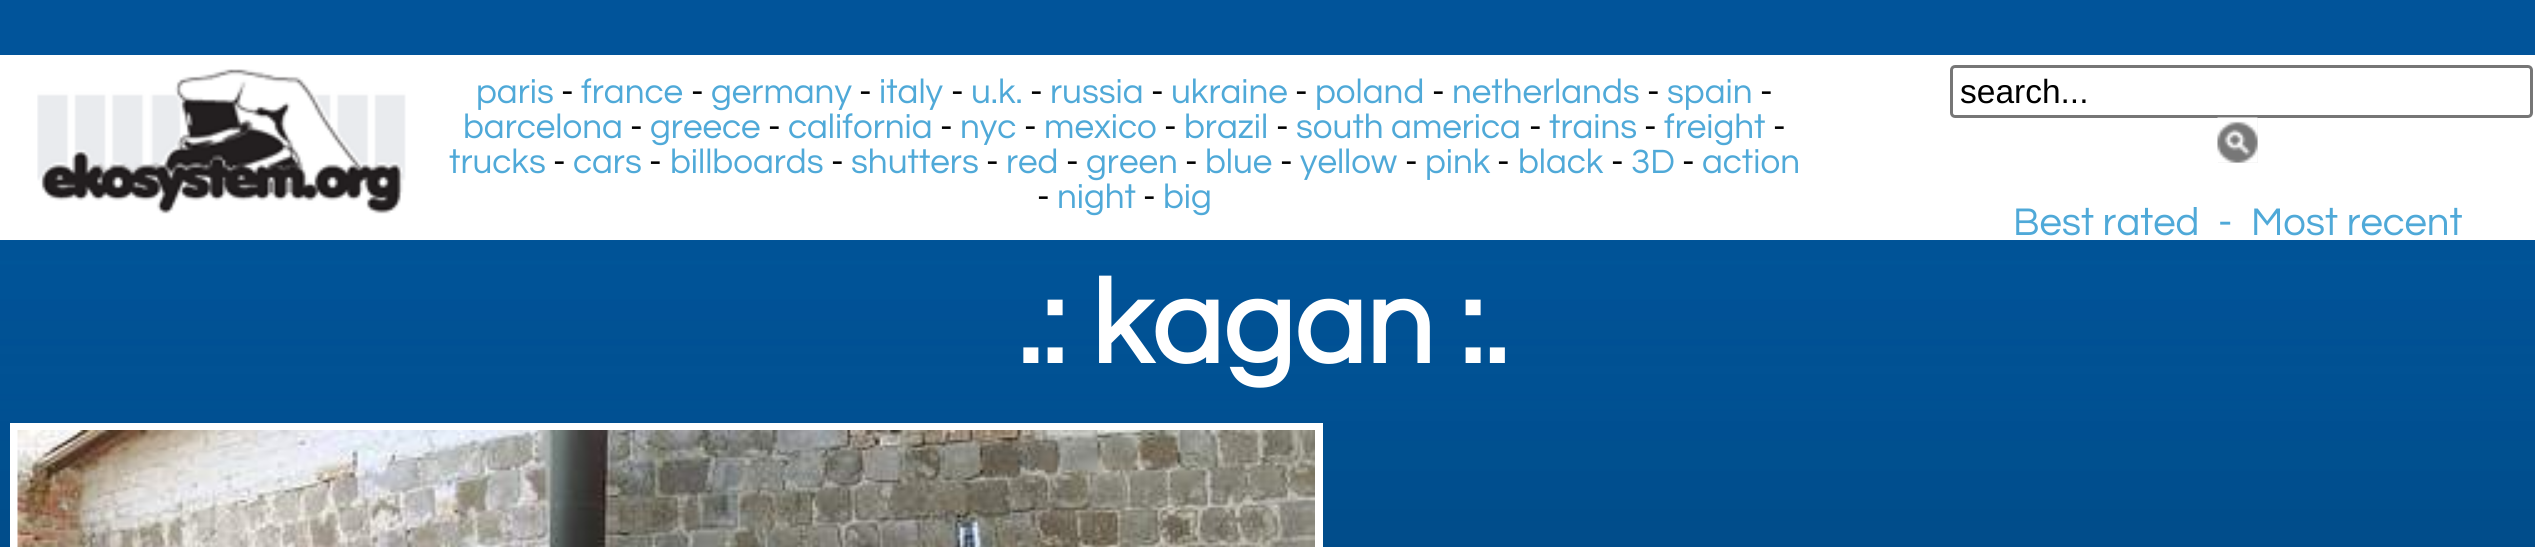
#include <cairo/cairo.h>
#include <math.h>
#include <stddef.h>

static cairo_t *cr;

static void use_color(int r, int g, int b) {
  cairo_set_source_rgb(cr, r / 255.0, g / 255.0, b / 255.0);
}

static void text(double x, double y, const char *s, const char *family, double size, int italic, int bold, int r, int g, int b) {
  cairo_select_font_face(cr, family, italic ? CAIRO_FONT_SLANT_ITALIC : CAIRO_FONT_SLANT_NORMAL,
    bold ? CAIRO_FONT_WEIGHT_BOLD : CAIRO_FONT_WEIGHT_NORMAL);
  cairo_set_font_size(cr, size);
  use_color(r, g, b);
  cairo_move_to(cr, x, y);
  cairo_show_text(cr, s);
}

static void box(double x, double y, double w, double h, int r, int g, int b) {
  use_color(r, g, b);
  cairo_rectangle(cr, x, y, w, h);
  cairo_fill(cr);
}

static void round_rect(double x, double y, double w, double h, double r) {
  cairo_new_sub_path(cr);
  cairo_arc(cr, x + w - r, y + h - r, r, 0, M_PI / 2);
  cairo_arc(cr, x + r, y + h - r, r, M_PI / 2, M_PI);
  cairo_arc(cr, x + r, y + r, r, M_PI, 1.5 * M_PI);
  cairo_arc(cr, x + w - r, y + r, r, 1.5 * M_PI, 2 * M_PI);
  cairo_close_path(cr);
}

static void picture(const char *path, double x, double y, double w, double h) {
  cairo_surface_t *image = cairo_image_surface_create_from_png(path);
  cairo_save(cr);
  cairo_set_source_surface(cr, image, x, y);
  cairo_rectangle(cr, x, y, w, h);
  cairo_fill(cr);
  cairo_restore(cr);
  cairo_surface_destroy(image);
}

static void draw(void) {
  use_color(255, 255, 255);
  cairo_paint(cr);
  picture("img_01.png", 0, 0, 2535, 547);
  box(0, 55, 2535, 185, 255, 255, 255);
  picture("img_02.png", 37, 69, 369, 145);
  round_rect(1951.5, 66.5, 580, 50, 3.5);
  use_color(118, 118, 118);
  cairo_set_line_width(cr, 3);
  cairo_stroke(cr);
  box(2218, 118, 40, 45, 239, 239, 239);
  picture("img_03.png", 2217, 117, 41, 46);
  cairo_rectangle(cr, 14, 427, 1305, 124);
  use_color(255, 255, 255);
  cairo_set_line_width(cr, 8);
  cairo_stroke(cr);
  picture("img_04.png", 17, 430, 1298, 117);
  text(476, 103, "paris", "Questrial", 35, 0, 0, 79, 169, 216);
  text(561, 103, "-", "Questrial", 35, 0, 0, 0, 0, 0);
  text(581, 103, "france", "Questrial", 35, 0, 0, 79, 169, 216);
  text(691, 103, "-", "Questrial", 35, 0, 0, 0, 0, 0);
  text(711, 103, "germany", "Questrial", 35, 0, 0, 79, 169, 216);
  text(859, 103, "-", "Questrial", 35, 0, 0, 0, 0, 0);
  text(879, 103, "italy", "Questrial", 35, 0, 0, 79, 169, 216);
  text(951, 103, "-", "Questrial", 35, 0, 0, 0, 0, 0);
  text(971, 103, "u.k.", "Questrial", 35, 0, 0, 79, 169, 216);
  text(1030, 103, "-", "Questrial", 35, 0, 0, 0, 0, 0);
  text(1050, 103, "russia", "Questrial", 35, 0, 0, 79, 169, 216);
  text(1151, 103, "-", "Questrial", 35, 0, 0, 0, 0, 0);
  text(1171, 103, "ukraine", "Questrial", 35, 0, 0, 79, 169, 216);
  text(1295, 103, "-", "Questrial", 35, 0, 0, 0, 0, 0);
  text(1315, 103, "poland", "Questrial", 35, 0, 0, 79, 169, 216);
  text(1432, 103, "-", "Questrial", 35, 0, 0, 0, 0, 0);
  text(1452, 103, "netherlands", "Questrial", 35, 0, 0, 79, 169, 216);
  text(1647, 103, "-", "Questrial", 35, 0, 0, 0, 0, 0);
  text(1667, 103, "spain", "Questrial", 35, 0, 0, 79, 169, 216);
  text(1760, 103, "-", "Questrial", 35, 0, 0, 0, 0, 0);
  text(463, 138, "barcelona", "Questrial", 35, 0, 0, 79, 169, 216);
  text(630, 138, "-", "Questrial", 35, 0, 0, 0, 0, 0);
  text(650, 138, "greece", "Questrial", 35, 0, 0, 79, 169, 216);
  text(768, 138, "-", "Questrial", 35, 0, 0, 0, 0, 0);
  text(788, 138, "california", "Questrial", 35, 0, 0, 79, 169, 216);
  text(940, 138, "-", "Questrial", 35, 0, 0, 0, 0, 0);
  text(960, 138, "nyc", "Questrial", 35, 0, 0, 79, 169, 216);
  text(1024, 138, "-", "Questrial", 35, 0, 0, 0, 0, 0);
  text(1044, 138, "mexico", "Questrial", 35, 0, 0, 79, 169, 216);
  text(1164, 138, "-", "Questrial", 35, 0, 0, 0, 0, 0);
  text(1184, 138, "brazil", "Questrial", 35, 0, 0, 79, 169, 216);
  text(1276, 138, "-", "Questrial", 35, 0, 0, 0, 0, 0);
  text(1296, 138, "south america", "Questrial", 35, 0, 0, 79, 169, 216);
  text(1529, 138, "-", "Questrial", 35, 0, 0, 0, 0, 0);
  text(1549, 138, "trains", "Questrial", 35, 0, 0, 79, 169, 216);
  text(1644, 138, "-", "Questrial", 35, 0, 0, 0, 0, 0);
  text(1664, 138, "freight", "Questrial", 35, 0, 0, 79, 169, 216);
  text(1773, 138, "-", "Questrial", 35, 0, 0, 0, 0, 0);
  text(449, 173, "trucks", "Questrial", 35, 0, 0, 79, 169, 216);
  text(553, 173, "-", "Questrial", 35, 0, 0, 0, 0, 0);
  text(573, 173, "cars", "Questrial", 35, 0, 0, 79, 169, 216);
  text(649, 173, "-", "Questrial", 35, 0, 0, 0, 0, 0);
  text(670, 173, "billboards", "Questrial", 35, 0, 0, 79, 169, 216);
  text(831, 173, "-", "Questrial", 35, 0, 0, 0, 0, 0);
  text(851, 173, "shutters", "Questrial", 35, 0, 0, 79, 169, 216);
  text(986, 173, "-", "Questrial", 35, 0, 0, 0, 0, 0);
  text(1006, 173, "red", "Questrial", 35, 0, 0, 79, 169, 216);
  text(1066, 173, "-", "Questrial", 35, 0, 0, 0, 0, 0);
  text(1086, 173, "green", "Questrial", 35, 0, 0, 79, 169, 216);
  text(1185, 173, "-", "Questrial", 35, 0, 0, 0, 0, 0);
  text(1205, 173, "blue", "Questrial", 35, 0, 0, 79, 169, 216);
  text(1280, 173, "-", "Questrial", 35, 0, 0, 0, 0, 0);
  text(1300, 173, "yellow", "Questrial", 35, 0, 0, 79, 169, 216);
  text(1405, 173, "-", "Questrial", 35, 0, 0, 0, 0, 0);
  text(1425, 173, "pink", "Questrial", 35, 0, 0, 79, 169, 216);
  text(1497, 173, "-", "Questrial", 35, 0, 0, 0, 0, 0);
  text(1518, 173, "black", "Questrial", 35, 0, 0, 79, 169, 216);
  text(1611, 173, "-", "Questrial", 35, 0, 0, 0, 0, 0);
  text(1631, 173, "3D", "Questrial", 35, 0, 0, 79, 169, 216);
  text(1682, 173, "-", "Questrial", 35, 0, 0, 0, 0, 0);
  text(1702, 173, "action", "Questrial", 35, 0, 0, 79, 169, 216);
  text(1037, 208, "-", "Questrial", 35, 0, 0, 0, 0, 0);
  text(1057, 208, "night", "Questrial", 35, 0, 0, 79, 169, 216);
  text(1143, 208, "-", "Questrial", 35, 0, 0, 0, 0, 0);
  text(1163, 208, "big", "Questrial", 35, 0, 0, 79, 169, 216);
  text(1960, 103, "search...", "Liberation Sans", 33.5, 0, 0, 0, 0, 0);
  text(2013, 235, "Best rated", "Questrial", 40, 0, 0, 79, 169, 216);
  text(2218, 235, "-", "Questrial", 40, 0, 0, 79, 169, 216);
  text(2251, 235, "Most recent", "Questrial", 40, 0, 0, 79, 169, 216);
  text(1017, 363, ".: kagan :.", "Questrial", 120, 0, 1, 255, 255, 255);
}

int main(void) {
  cairo_surface_t *surface = cairo_image_surface_create(CAIRO_FORMAT_RGB24, 2535, 547);
  cr = cairo_create(surface);
  cairo_font_options_t *options = cairo_font_options_create();
  cairo_font_options_set_hint_metrics(options, CAIRO_HINT_METRICS_OFF);
  cairo_font_options_set_hint_style(options, CAIRO_HINT_STYLE_NONE);
  cairo_set_font_options(cr, options);
  cairo_set_miter_limit(cr, 4);
  draw();
  cairo_surface_write_to_png(surface, "out.png");
  cairo_font_options_destroy(options);
  cairo_destroy(cr);
  cairo_surface_destroy(surface);
  return 0;
}
